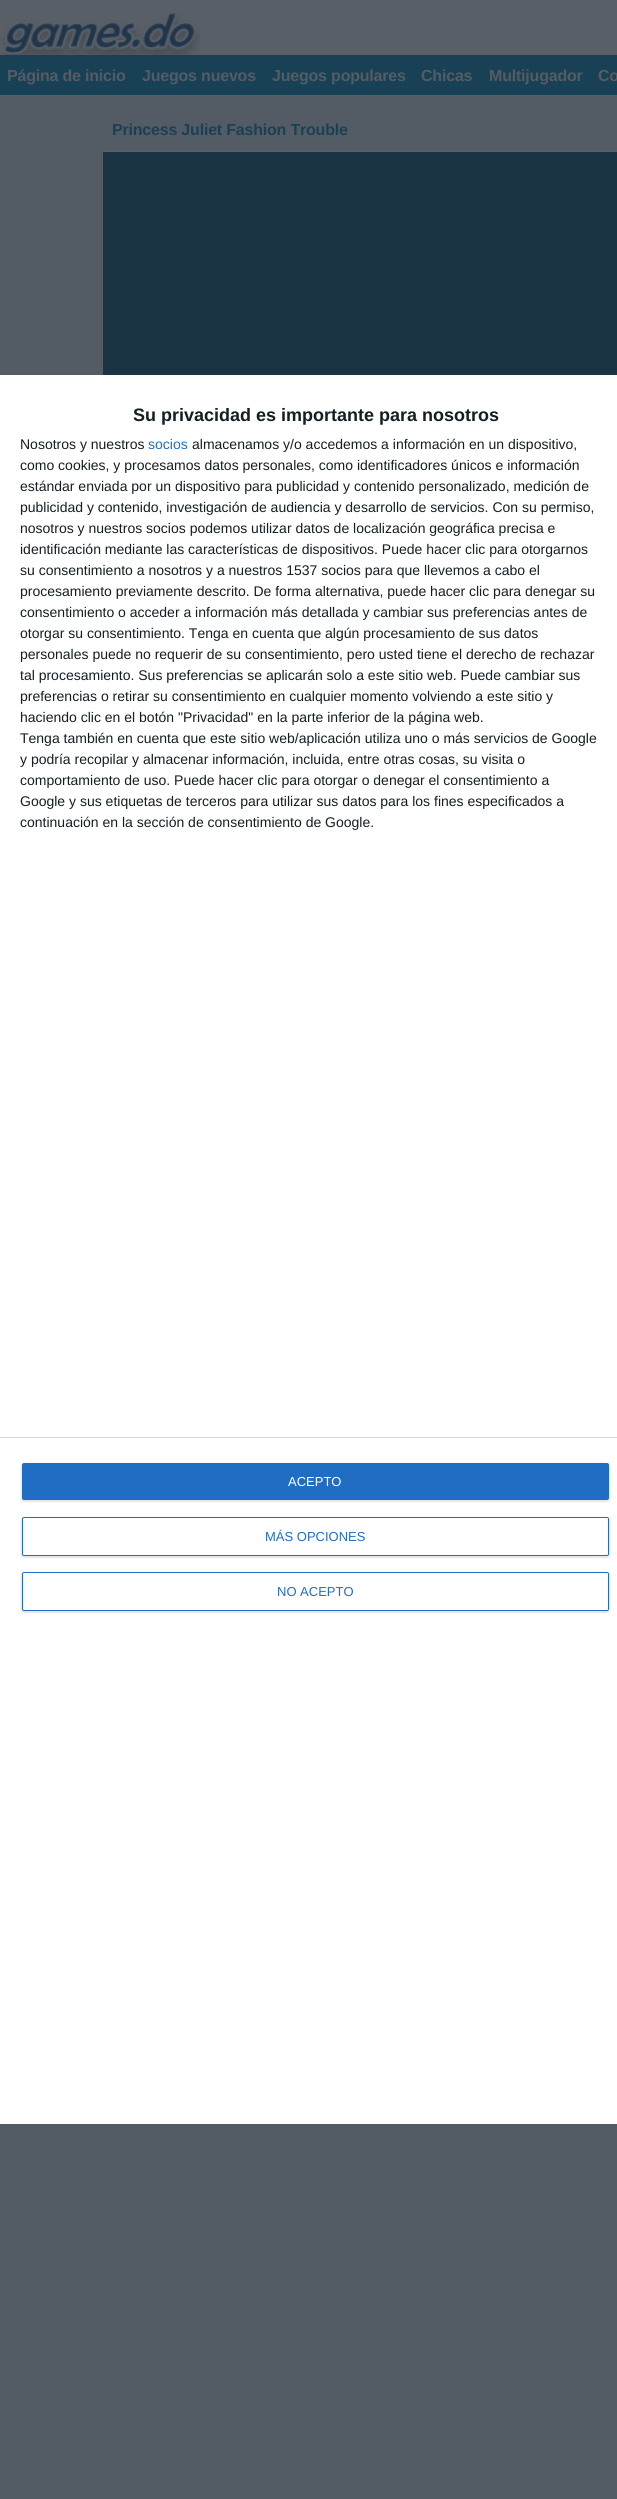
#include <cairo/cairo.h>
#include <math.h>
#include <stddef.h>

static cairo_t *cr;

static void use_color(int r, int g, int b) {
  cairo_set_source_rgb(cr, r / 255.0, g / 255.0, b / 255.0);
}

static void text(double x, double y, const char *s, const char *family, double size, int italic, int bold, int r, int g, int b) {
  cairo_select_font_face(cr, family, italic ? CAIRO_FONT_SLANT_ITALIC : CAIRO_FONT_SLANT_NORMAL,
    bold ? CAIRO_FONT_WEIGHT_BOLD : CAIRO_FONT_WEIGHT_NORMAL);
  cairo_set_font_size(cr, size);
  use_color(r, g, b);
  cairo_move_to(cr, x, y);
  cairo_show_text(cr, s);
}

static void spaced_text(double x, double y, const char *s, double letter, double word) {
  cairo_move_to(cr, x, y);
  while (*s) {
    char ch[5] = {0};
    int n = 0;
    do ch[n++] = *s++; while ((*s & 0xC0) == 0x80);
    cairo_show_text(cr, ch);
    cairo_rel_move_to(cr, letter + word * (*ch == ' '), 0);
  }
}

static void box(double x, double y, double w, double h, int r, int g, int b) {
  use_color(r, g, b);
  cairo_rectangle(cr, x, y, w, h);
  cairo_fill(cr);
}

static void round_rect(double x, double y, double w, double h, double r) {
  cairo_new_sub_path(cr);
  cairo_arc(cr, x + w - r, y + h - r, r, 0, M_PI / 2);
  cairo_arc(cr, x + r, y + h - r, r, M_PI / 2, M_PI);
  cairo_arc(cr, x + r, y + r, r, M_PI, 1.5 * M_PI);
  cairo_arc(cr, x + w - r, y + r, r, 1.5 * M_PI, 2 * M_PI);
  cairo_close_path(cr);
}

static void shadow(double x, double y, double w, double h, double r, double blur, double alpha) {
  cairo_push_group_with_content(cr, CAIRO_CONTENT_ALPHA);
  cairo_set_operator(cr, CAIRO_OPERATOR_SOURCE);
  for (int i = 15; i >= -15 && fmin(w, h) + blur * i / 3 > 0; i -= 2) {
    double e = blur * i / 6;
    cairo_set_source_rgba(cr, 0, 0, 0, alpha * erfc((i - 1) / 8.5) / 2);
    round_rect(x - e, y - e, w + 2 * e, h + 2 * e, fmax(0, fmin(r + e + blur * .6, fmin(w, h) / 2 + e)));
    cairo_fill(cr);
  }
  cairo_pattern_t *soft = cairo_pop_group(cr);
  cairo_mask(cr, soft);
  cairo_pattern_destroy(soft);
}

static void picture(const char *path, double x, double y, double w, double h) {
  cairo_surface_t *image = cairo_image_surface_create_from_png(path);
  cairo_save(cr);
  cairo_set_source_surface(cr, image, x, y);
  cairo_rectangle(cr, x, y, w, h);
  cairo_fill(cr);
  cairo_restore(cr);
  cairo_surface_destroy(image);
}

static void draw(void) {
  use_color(83, 91, 100);
  cairo_paint(cr);
  box(0, 0, 617, 55, 89, 95, 103);
  picture("img_01.png", 0, 12, 200, 43);
  box(0, 95, 617, 1, 89, 95, 103);
  box(0, 55, 617, 40, 25, 65, 85);
  use_color(25, 31, 39);
  shadow(102, 152, 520, 453, 2, 1, 0.2);
  use_color(89, 95, 103);
  round_rect(102, 151, 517, 453, 2);
  cairo_fill(cr);
  box(103, 152, 514, 223, 25, 51, 66);
  box(0, 375, 617, 1749, 255, 255, 255);
  box(0, 1437, 617, 1, 216, 216, 216);
  use_color(0, 0, 0);
  shadow(21, 1463, 589, 39, 3, 0.5, 0.1);
  use_color(32, 109, 197);
  round_rect(22, 1463, 587, 37, 2);
  cairo_fill(cr);
  use_color(0, 0, 0);
  shadow(21, 1517, 589, 41, 3, 0.5, 0.1);
  use_color(255, 255, 255);
  round_rect(22.5, 1517.5, 586, 38, 1.5);
  cairo_fill_preserve(cr);
  use_color(32, 109, 197);
  cairo_set_line_width(cr, 1);
  cairo_stroke(cr);
  use_color(0, 0, 0);
  shadow(21, 1572, 589, 41, 3, 0.5, 0.1);
  use_color(255, 255, 255);
  round_rect(22.5, 1572.5, 586, 38, 1.5);
  cairo_fill_preserve(cr);
  use_color(32, 109, 197);
  cairo_stroke(cr);
  cairo_select_font_face(cr, "Liberation Sans", CAIRO_FONT_SLANT_NORMAL, CAIRO_FONT_WEIGHT_BOLD);
  cairo_set_font_size(cr, 16);
  use_color(85, 91, 100);
  spaced_text(7, 81, "Página de inicio", -0.2, 0);
  spaced_text(142, 81, "Juegos nuevos", -0.2, 0);
  spaced_text(272, 81, "Juegos populares", -0.2, 0);
  spaced_text(421, 81, "Chicas", -0.2, 0);
  spaced_text(489, 81, "Multijugador", -0.2, 0);
  spaced_text(598, 81, "Co", -0.2, 0);
  use_color(25, 65, 85);
  spaced_text(112, 135, "Princess Juliet Fashion Trouble", -0.2, 0);
  text(133, 421, "Su privacidad es importante para nosotros", "Liberation Sans", 18, 0, 1, 20, 30, 35);
  text(20, 449, "Nosotros y nuestros", "Liberation Sans", 14, 0, 0, 20, 30, 35);
  text(148, 449, "socios", "Liberation Sans", 14, 0, 0, 32, 109, 197);
  text(192, 449, "almacenamos y/o accedemos a información en un dispositivo,", "Liberation Sans", 14, 0, 0, 20, 30, 35);
  text(20, 470, "como cookies, y procesamos datos personales, como identificadores únicos e información", "Liberation Sans", 14, 0, 0, 20, 30, 35);
  text(20, 491, "estándar enviada por un dispositivo para publicidad y contenido personalizado, medición de", "Liberation Sans", 14, 0, 0, 20, 30, 35);
  text(20, 512, "publicidad y contenido, investigación de audiencia y desarrollo de servicios. Con su permiso,", "Liberation Sans", 14, 0, 0, 20, 30, 35);
  text(20, 533, "nosotros y nuestros socios podemos utilizar datos de localización geográfica precisa e", "Liberation Sans", 14, 0, 0, 20, 30, 35);
  text(20, 554, "identificación mediante las características de dispositivos. Puede hacer clic para otorgarnos", "Liberation Sans", 14, 0, 0, 20, 30, 35);
  text(20, 575, "su consentimiento a nosotros y a nuestros 1537 socios para que llevemos a cabo el", "Liberation Sans", 14, 0, 0, 20, 30, 35);
  text(20, 596, "procesamiento previamente descrito. De forma alternativa, puede hacer clic para denegar su", "Liberation Sans", 14, 0, 0, 20, 30, 35);
  text(20, 617, "consentimiento o acceder a información más detallada y cambiar sus preferencias antes de", "Liberation Sans", 14, 0, 0, 20, 30, 35);
  text(20, 638, "otorgar su consentimiento. Tenga en cuenta que algún procesamiento de sus datos", "Liberation Sans", 14, 0, 0, 20, 30, 35);
  text(20, 659, "personales puede no requerir de su consentimiento, pero usted tiene el derecho de rechazar", "Liberation Sans", 14, 0, 0, 20, 30, 35);
  text(20, 680, "tal procesamiento. Sus preferencias se aplicarán solo a este sitio web. Puede cambiar sus", "Liberation Sans", 14, 0, 0, 20, 30, 35);
  text(20, 701, "preferencias o retirar su consentimiento en cualquier momento volviendo a este sitio y", "Liberation Sans", 14, 0, 0, 20, 30, 35);
  text(20, 722, "haciendo clic en el botón \"Privacidad\" en la parte inferior de la página web.", "Liberation Sans", 14, 0, 0, 20, 30, 35);
  text(20, 743, "Tenga también en cuenta que este sitio web/aplicación utiliza uno o más servicios de Google", "Liberation Sans", 14, 0, 0, 20, 30, 35);
  text(20, 764, "y podría recopilar y almacenar información, incluida, entre otras cosas, su visita o", "Liberation Sans", 14, 0, 0, 20, 30, 35);
  text(20, 785, "comportamiento de uso. Puede hacer clic para otorgar o denegar el consentimiento a", "Liberation Sans", 14, 0, 0, 20, 30, 35);
  text(20, 806, "Google y sus etiquetas de terceros para utilizar sus datos para los fines especificados a", "Liberation Sans", 14, 0, 0, 20, 30, 35);
  text(20, 827, "continuación en la sección de consentimiento de Google.", "Liberation Sans", 14, 0, 0, 20, 30, 35);
  text(288, 1486, "ACEPTO", "Liberation Sans", 13, 0, 0, 255, 255, 255);
  text(265, 1541, "MÁS OPCIONES", "Liberation Sans", 13, 0, 0, 32, 109, 197);
  text(277, 1596, "NO ACEPTO", "Liberation Sans", 13, 0, 0, 32, 109, 197);
}

int main(void) {
  cairo_surface_t *surface = cairo_image_surface_create(CAIRO_FORMAT_RGB24, 617, 2499);
  cr = cairo_create(surface);
  cairo_font_options_t *options = cairo_font_options_create();
  cairo_font_options_set_hint_metrics(options, CAIRO_HINT_METRICS_OFF);
  cairo_font_options_set_hint_style(options, CAIRO_HINT_STYLE_NONE);
  cairo_set_font_options(cr, options);
  cairo_set_miter_limit(cr, 4);
  draw();
  cairo_surface_write_to_png(surface, "out.png");
  cairo_font_options_destroy(options);
  cairo_destroy(cr);
  cairo_surface_destroy(surface);
  return 0;
}
